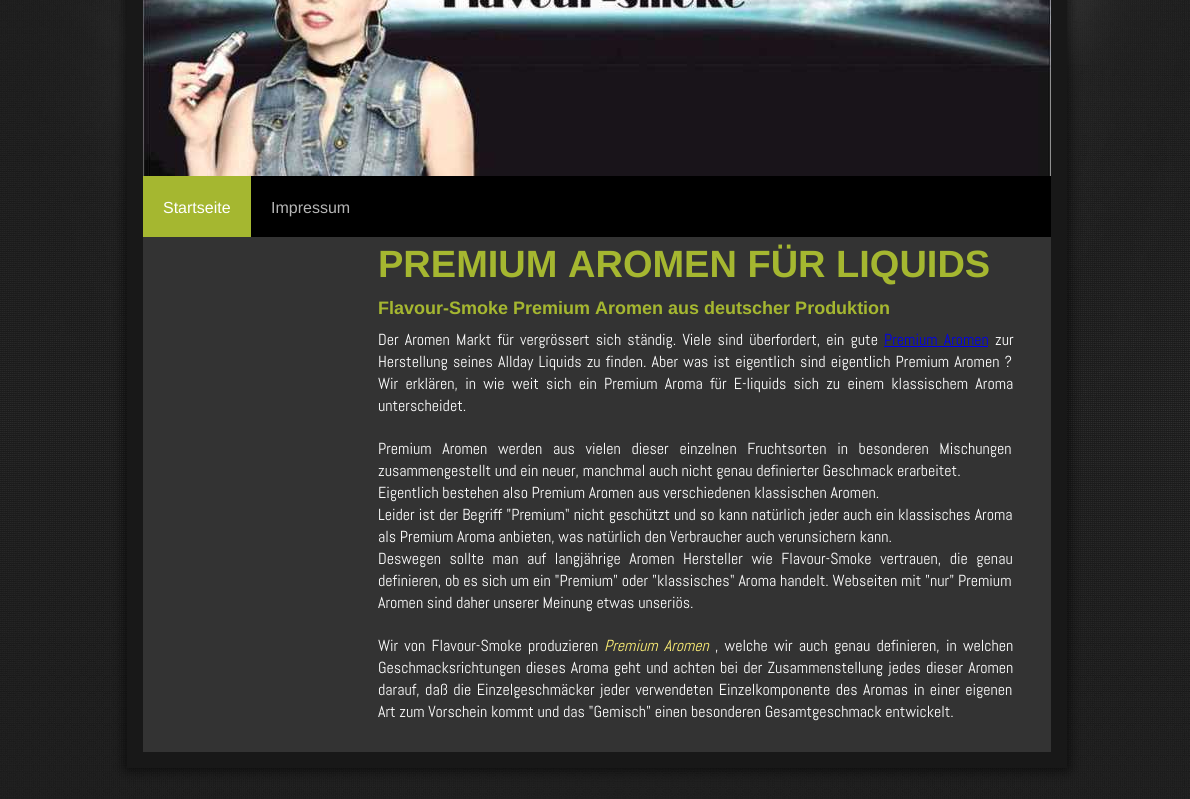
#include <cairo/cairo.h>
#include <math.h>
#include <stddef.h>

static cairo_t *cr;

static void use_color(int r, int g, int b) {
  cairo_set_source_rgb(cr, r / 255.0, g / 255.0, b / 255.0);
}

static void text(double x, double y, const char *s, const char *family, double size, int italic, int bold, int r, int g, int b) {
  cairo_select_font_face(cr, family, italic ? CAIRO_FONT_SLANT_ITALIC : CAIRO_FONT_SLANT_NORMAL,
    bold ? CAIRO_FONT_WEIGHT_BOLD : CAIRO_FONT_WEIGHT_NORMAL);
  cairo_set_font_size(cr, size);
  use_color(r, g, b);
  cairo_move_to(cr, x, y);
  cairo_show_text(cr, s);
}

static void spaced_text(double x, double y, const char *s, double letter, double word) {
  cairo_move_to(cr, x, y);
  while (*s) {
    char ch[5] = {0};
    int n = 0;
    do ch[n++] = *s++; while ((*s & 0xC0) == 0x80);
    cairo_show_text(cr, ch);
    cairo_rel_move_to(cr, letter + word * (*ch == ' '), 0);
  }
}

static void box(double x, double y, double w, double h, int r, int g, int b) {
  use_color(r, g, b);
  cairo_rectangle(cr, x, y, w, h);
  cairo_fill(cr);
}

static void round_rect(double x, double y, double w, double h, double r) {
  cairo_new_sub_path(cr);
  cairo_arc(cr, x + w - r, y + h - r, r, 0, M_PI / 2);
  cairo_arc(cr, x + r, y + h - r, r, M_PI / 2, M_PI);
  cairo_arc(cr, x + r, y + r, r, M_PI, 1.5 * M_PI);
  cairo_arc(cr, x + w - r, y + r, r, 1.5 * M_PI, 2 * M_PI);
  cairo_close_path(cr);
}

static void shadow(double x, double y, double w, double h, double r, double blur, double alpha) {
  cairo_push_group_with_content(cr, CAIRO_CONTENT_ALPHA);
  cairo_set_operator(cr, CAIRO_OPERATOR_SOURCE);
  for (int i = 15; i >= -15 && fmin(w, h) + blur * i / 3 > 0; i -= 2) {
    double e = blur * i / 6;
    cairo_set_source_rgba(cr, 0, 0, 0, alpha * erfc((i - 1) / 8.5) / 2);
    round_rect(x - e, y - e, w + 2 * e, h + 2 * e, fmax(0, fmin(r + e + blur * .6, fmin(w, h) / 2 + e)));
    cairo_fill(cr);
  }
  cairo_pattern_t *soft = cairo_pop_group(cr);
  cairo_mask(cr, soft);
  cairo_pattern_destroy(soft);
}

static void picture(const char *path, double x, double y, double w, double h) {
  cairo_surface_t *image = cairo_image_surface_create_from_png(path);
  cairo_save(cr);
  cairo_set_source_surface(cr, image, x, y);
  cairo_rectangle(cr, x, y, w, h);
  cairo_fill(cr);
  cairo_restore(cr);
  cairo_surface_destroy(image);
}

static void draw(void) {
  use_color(255, 255, 255);
  cairo_paint(cr);
  picture("img_01.png", 0, 0, 1190, 799);
  use_color(0, 0, 0);
  shadow(127, -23, 940, 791, 0, 7.5, 0.8);
  box(143, 237, 908, 515, 51, 51, 51);
  cairo_rectangle(cr, 135, -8, 924, 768);
  use_color(24, 24, 24);
  cairo_set_line_width(cr, 16);
  cairo_stroke(cr);
  picture("img_02.png", 143, 0, 908, 176);
  box(251, 176, 800, 61, 0, 0, 0);
  box(143, 176, 108, 61, 165, 183, 48);
  box(884, 346, 104, 1, 0, 0, 238);
  text(163, 213, "Startseite", "Liberation Sans", 16, 0, 0, 255, 255, 255);
  text(271, 213, "Impressum", "Liberation Sans", 16, 0, 0, 181, 181, 181);
  text(378, 277, "PREMIUM AROMEN FÜR LIQUIDS", "Liberation Sans", 38, 0, 1, 165, 183, 48);
  text(378, 314, "Flavour-Smoke Premium Aromen aus deutscher Produktion", "Liberation Sans", 18, 0, 1, 165, 183, 48);
  cairo_select_font_face(cr, "Abel", CAIRO_FONT_SLANT_NORMAL, CAIRO_FONT_WEIGHT_NORMAL);
  cairo_set_font_size(cr, 16);
  use_color(255, 255, 255);
  spaced_text(378, 345, "Der Aromen Markt für vergrössert sich ständig. Viele sind überfordert, ein gute", 0, 2.5);
  use_color(0, 0, 238);
  spaced_text(884, 345, "Premium Aromen", 0, 2.5);
  text(995, 345, "zur", "Abel", 16, 0, 0, 255, 255, 255);
  spaced_text(378, 367, "Herstellung seines Allday Liquids zu finden. Aber was ist eigentlich sind eigentlich Premium Aromen ?", 0, 1.5);
  spaced_text(378, 389, "Wir erklären, in wie weit sich ein Premium Aroma für E-liquids sich zu einem klassischem Aroma", 0, 3.6);
  text(378, 411, "unterscheidet.", "Abel", 16, 0, 0, 255, 255, 255);
  spaced_text(378, 454, "Premium Aromen werden aus vielen dieser einzelnen Fruchtsorten in besonderen Mischungen", 0, 7);
  text(378, 476, "zusammengestellt und ein neuer, manchmal auch nicht genau definierter Geschmack erarbeitet.", "Abel", 16, 0, 0, 255, 255, 255);
  text(378, 498, "Eigentlich bestehen also Premium Aromen aus verschiedenen klassischen Aromen.", "Abel", 16, 0, 0, 255, 255, 255);
  spaced_text(378, 520, "Leider ist der Begriff \"Premium\" nicht geschützt und so kann natürlich jeder auch ein klassisches Aroma", 0, 0.3);
  text(378, 542, "als Premium Aroma anbieten, was natürlich den Verbraucher auch verunsichern kann.", "Abel", 16, 0, 0, 255, 255, 255);
  spaced_text(378, 564, "Deswegen sollte man auf langjährige Aromen Hersteller wie Flavour-Smoke vertrauen, die genau", 0, 4.9);
  text(378, 586, "definieren, ob es sich um ein \"Premium\" oder \"klassisches\" Aroma handelt. Webseiten mit \"nur\" Premium", "Abel", 16, 0, 0, 255, 255, 255);
  text(378, 608, "Aromen sind daher unserer Meinung etwas unseriös.", "Abel", 16, 0, 0, 255, 255, 255);
  spaced_text(378, 651, "Wir von Flavour-Smoke produzieren", 0, 2.5);
  cairo_select_font_face(cr, "Abel", CAIRO_FONT_SLANT_ITALIC, CAIRO_FONT_WEIGHT_NORMAL);
  use_color(255, 241, 118);
  spaced_text(604, 651, "Premium Aromen", 0, 2.5);
  cairo_select_font_face(cr, "Abel", CAIRO_FONT_SLANT_NORMAL, CAIRO_FONT_WEIGHT_NORMAL);
  use_color(255, 255, 255);
  spaced_text(715, 651, ", welche wir auch genau definieren, in welchen", 0, 2.5);
  spaced_text(378, 673, "Geschmacksrichtungen dieses Aroma geht und achten bei der Zusammenstellung jedes dieser Aromen", 0, 1.4);
  spaced_text(378, 695, "darauf, daß die Einzelgeschmäcker jeder verwendeten Einzelkomponente des Aromas in einer eigenen", 0, 1.75);
  text(378, 717, "Art zum Vorschein kommt und das \"Gemisch\" einen besonderen Gesamtgeschmack entwickelt.", "Abel", 16, 0, 0, 255, 255, 255);
}

int main(void) {
  cairo_surface_t *surface = cairo_image_surface_create(CAIRO_FORMAT_RGB24, 1190, 799);
  cr = cairo_create(surface);
  cairo_font_options_t *options = cairo_font_options_create();
  cairo_font_options_set_hint_metrics(options, CAIRO_HINT_METRICS_OFF);
  cairo_font_options_set_hint_style(options, CAIRO_HINT_STYLE_NONE);
  cairo_set_font_options(cr, options);
  cairo_set_miter_limit(cr, 4);
  draw();
  cairo_surface_write_to_png(surface, "out.png");
  cairo_font_options_destroy(options);
  cairo_destroy(cr);
  cairo_surface_destroy(surface);
  return 0;
}
